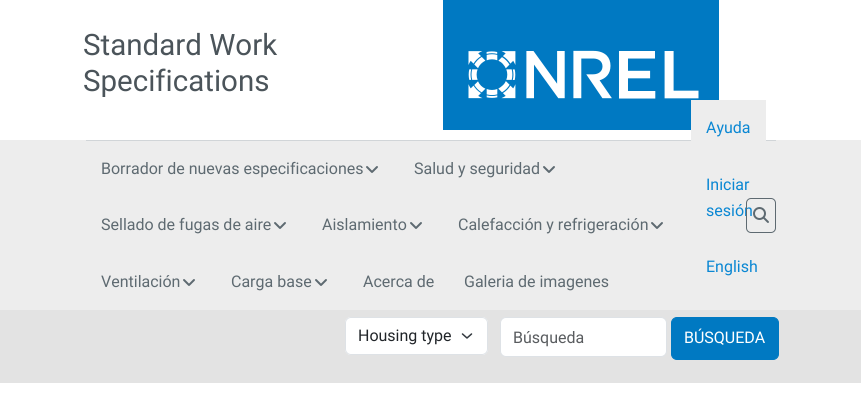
#include <cairo/cairo.h>
#include <math.h>
#include <stddef.h>

static cairo_t *cr;

static void use_color(int r, int g, int b) {
  cairo_set_source_rgb(cr, r / 255.0, g / 255.0, b / 255.0);
}

static void text(double x, double y, const char *s, const char *family, double size, int italic, int bold, int r, int g, int b) {
  cairo_select_font_face(cr, family, italic ? CAIRO_FONT_SLANT_ITALIC : CAIRO_FONT_SLANT_NORMAL,
    bold ? CAIRO_FONT_WEIGHT_BOLD : CAIRO_FONT_WEIGHT_NORMAL);
  cairo_set_font_size(cr, size);
  use_color(r, g, b);
  cairo_move_to(cr, x, y);
  cairo_show_text(cr, s);
}

static void box(double x, double y, double w, double h, int r, int g, int b) {
  use_color(r, g, b);
  cairo_rectangle(cr, x, y, w, h);
  cairo_fill(cr);
}

static void round_rect(double x, double y, double w, double h, double r) {
  cairo_new_sub_path(cr);
  cairo_arc(cr, x + w - r, y + h - r, r, 0, M_PI / 2);
  cairo_arc(cr, x + r, y + h - r, r, M_PI / 2, M_PI);
  cairo_arc(cr, x + r, y + r, r, M_PI, 1.5 * M_PI);
  cairo_arc(cr, x + w - r, y + r, r, 1.5 * M_PI, 2 * M_PI);
  cairo_close_path(cr);
}

static void picture(const char *path, double x, double y, double w, double h) {
  cairo_surface_t *image = cairo_image_surface_create_from_png(path);
  cairo_save(cr);
  cairo_set_source_surface(cr, image, x, y);
  cairo_rectangle(cr, x, y, w, h);
  cairo_fill(cr);
  cairo_restore(cr);
  cairo_surface_destroy(image);
}

static void draw(void) {
  use_color(255, 255, 255);
  cairo_paint(cr);
  picture("img_01.png", 443, 0, 276, 130);
  box(0, 140, 861, 170, 237, 237, 237);
  box(86, 140, 690, 1, 209, 213, 216);
  picture("img_02.png", 366, 166, 12, 7);
  picture("img_02.png", 543, 166, 12, 7);
  picture("img_02.png", 274, 222, 12, 7);
  picture("img_02.png", 410, 222, 12, 7);
  picture("img_02.png", 651, 222, 12, 7);
  picture("img_02.png", 183, 279, 12, 7);
  picture("img_02.png", 315, 279, 12, 7);
  box(691, 100, 75, 41, 237, 237, 237);
  box(0, 310, 861, 73, 227, 227, 227);
  use_color(255, 255, 255);
  round_rect(345, 317, 143, 38, 6);
  cairo_fill(cr);
  cairo_new_path(cr);
  cairo_move_to(cr, 462.5, 334);
  cairo_line_to(cr, 467, 338);
  cairo_line_to(cr, 471.5, 334);
  use_color(52, 58, 64);
  cairo_set_line_width(cr, 1.5);
  cairo_set_line_cap(cr, CAIRO_LINE_CAP_ROUND);
  cairo_set_line_join(cr, CAIRO_LINE_JOIN_ROUND);
  cairo_stroke(cr);
  round_rect(345.5, 317.5, 142, 37, 5.5);
  use_color(222, 226, 230);
  cairo_set_line_width(cr, 1);
  cairo_set_line_cap(cr, CAIRO_LINE_CAP_BUTT);
  cairo_set_line_join(cr, CAIRO_LINE_JOIN_MITER);
  cairo_stroke(cr);
  use_color(255, 255, 255);
  round_rect(500.5, 317.5, 166, 39, 5.5);
  cairo_fill_preserve(cr);
  use_color(222, 226, 230);
  cairo_stroke(cr);
  use_color(0, 121, 194);
  round_rect(671.5, 317.5, 107, 42, 5.5);
  cairo_fill_preserve(cr);
  cairo_stroke(cr);
  text(83, 55, "Standard Work", "Roboto", 29.5, 0, 0, 75, 84, 90);
  text(83, 91, "Specifications", "Roboto", 29.5, 0, 0, 75, 84, 90);
  text(101, 174, "Borrador de nuevas especificaciones", "Roboto", 16, 0, 0, 94, 106, 113);
  text(414, 174, "Salud y seguridad", "Roboto", 16, 0, 0, 94, 106, 113);
  text(101, 230, "Sellado de fugas de aire", "Roboto", 16, 0, 0, 94, 106, 113);
  text(322, 230, "Aislamiento", "Roboto", 16, 0, 0, 94, 106, 113);
  text(458, 230, "Calefacción y refrigeración", "Roboto", 16, 0, 0, 94, 106, 113);
  text(101, 287, "Ventilación", "Roboto", 16, 0, 0, 94, 106, 113);
  text(231, 287, "Carga base", "Roboto", 16, 0, 0, 94, 106, 113);
  text(363, 287, "Acerca de", "Roboto", 16, 0, 0, 94, 106, 113);
  text(464, 287, "Galeria de imagenes", "Roboto", 16, 0, 0, 94, 106, 113);
  text(706, 133, "Ayuda", "Roboto", 16, 0, 0, 10, 135, 211);
  text(706, 190, "Iniciar", "Roboto", 16, 0, 0, 10, 135, 211);
  text(706, 216, "sesión", "Roboto", 16, 0, 0, 10, 135, 211);
  text(706, 272, "English", "Roboto", 16, 0, 0, 10, 135, 211);
  round_rect(746.5, 198.5, 29, 34, 4.5);
  use_color(94, 106, 113);
  cairo_stroke(cr);
  picture("img_03.png", 753, 207, 16, 16);
  text(358, 341, "Housing type", "Roboto", 16, 0, 0, 33, 37, 41);
  text(513, 343, "Búsqueda", "Roboto", 16, 0, 0, 89, 92, 95);
  text(684, 343, "BÚSQUEDA", "Roboto", 16, 0, 0, 255, 255, 255);
}

int main(void) {
  cairo_surface_t *surface = cairo_image_surface_create(CAIRO_FORMAT_RGB24, 861, 395);
  cr = cairo_create(surface);
  cairo_font_options_t *options = cairo_font_options_create();
  cairo_font_options_set_hint_metrics(options, CAIRO_HINT_METRICS_OFF);
  cairo_font_options_set_hint_style(options, CAIRO_HINT_STYLE_NONE);
  cairo_set_font_options(cr, options);
  cairo_set_miter_limit(cr, 4);
  draw();
  cairo_surface_write_to_png(surface, "out.png");
  cairo_font_options_destroy(options);
  cairo_destroy(cr);
  cairo_surface_destroy(surface);
  return 0;
}
